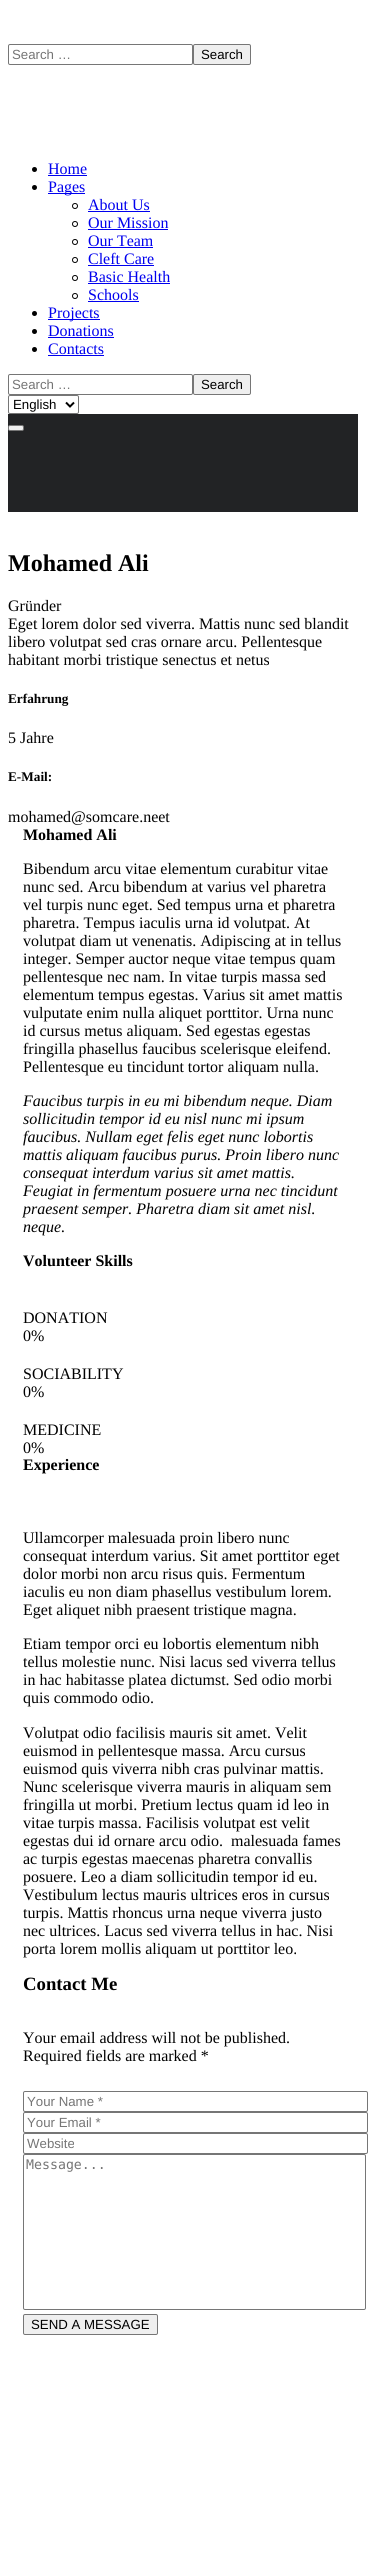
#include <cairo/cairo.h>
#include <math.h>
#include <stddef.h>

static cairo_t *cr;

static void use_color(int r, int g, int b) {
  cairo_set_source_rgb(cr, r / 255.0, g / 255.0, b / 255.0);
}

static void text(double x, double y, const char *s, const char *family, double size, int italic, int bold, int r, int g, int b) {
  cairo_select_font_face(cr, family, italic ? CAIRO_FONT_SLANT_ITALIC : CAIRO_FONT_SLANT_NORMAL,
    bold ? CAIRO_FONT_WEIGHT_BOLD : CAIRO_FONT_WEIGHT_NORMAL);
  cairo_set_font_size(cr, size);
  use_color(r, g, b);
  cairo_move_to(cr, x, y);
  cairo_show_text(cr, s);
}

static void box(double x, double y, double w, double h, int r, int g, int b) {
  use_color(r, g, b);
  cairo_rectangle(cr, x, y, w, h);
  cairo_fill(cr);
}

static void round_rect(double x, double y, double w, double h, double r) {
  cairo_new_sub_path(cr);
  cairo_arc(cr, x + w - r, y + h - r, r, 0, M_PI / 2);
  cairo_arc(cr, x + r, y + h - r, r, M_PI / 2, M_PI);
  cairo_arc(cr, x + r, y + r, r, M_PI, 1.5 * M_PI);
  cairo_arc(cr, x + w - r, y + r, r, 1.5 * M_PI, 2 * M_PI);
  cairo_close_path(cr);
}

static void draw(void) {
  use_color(255, 255, 255);
  cairo_paint(cr);
  round_rect(8.5, 44.5, 184, 20, 1.5);
  use_color(118, 118, 118);
  cairo_set_line_width(cr, 1);
  cairo_stroke(cr);
  use_color(239, 239, 239);
  round_rect(193.5, 44.5, 57, 20, 1.5);
  cairo_fill_preserve(cr);
  use_color(118, 118, 118);
  cairo_stroke(cr);
  use_color(0, 0, 0);
  cairo_arc(cr, 34.5, 169.5, 2.5, 0, 2 * M_PI);
  cairo_fill(cr);
  box(48, 175, 39, 1, 0, 0, 238);
  use_color(0, 0, 0);
  cairo_arc(cr, 34.5, 187.5, 2.5, 0, 2 * M_PI);
  cairo_fill(cr);
  box(48, 193, 37, 1, 0, 0, 238);
  cairo_arc(cr, 75, 206, 2.5, 0, 2 * M_PI);
  use_color(0, 0, 0);
  cairo_stroke(cr);
  box(88, 211, 62, 1, 0, 0, 238);
  cairo_arc(cr, 75, 224, 2.5, 0, 2 * M_PI);
  use_color(0, 0, 0);
  cairo_stroke(cr);
  box(88, 229, 80, 1, 0, 0, 238);
  cairo_arc(cr, 75, 242, 2.5, 0, 2 * M_PI);
  use_color(0, 0, 0);
  cairo_stroke(cr);
  box(88, 247, 65, 1, 0, 0, 238);
  cairo_arc(cr, 75, 260, 2.5, 0, 2 * M_PI);
  use_color(0, 0, 0);
  cairo_stroke(cr);
  box(88, 265, 66, 1, 0, 0, 238);
  cairo_arc(cr, 75, 278, 2.5, 0, 2 * M_PI);
  use_color(0, 0, 0);
  cairo_stroke(cr);
  box(88, 283, 82, 1, 0, 0, 238);
  cairo_arc(cr, 75, 296, 2.5, 0, 2 * M_PI);
  use_color(0, 0, 0);
  cairo_stroke(cr);
  box(88, 301, 51, 1, 0, 0, 238);
  use_color(0, 0, 0);
  cairo_arc(cr, 34.5, 313.5, 2.5, 0, 2 * M_PI);
  cairo_fill(cr);
  box(48, 319, 52, 1, 0, 0, 238);
  use_color(0, 0, 0);
  cairo_arc(cr, 34.5, 331.5, 2.5, 0, 2 * M_PI);
  cairo_fill(cr);
  box(48, 337, 66, 1, 0, 0, 238);
  use_color(0, 0, 0);
  cairo_arc(cr, 34.5, 349.5, 2.5, 0, 2 * M_PI);
  cairo_fill(cr);
  box(48, 355, 56, 1, 0, 0, 238);
  round_rect(8.5, 374.5, 184, 20, 1.5);
  use_color(118, 118, 118);
  cairo_stroke(cr);
  use_color(239, 239, 239);
  round_rect(193.5, 374.5, 57, 20, 1.5);
  cairo_fill_preserve(cr);
  use_color(118, 118, 118);
  cairo_stroke(cr);
  round_rect(8.5, 395.5, 70, 18, 1.5);
  cairo_stroke(cr);
  cairo_new_path(cr);
  cairo_move_to(cr, 66, 402.5);
  cairo_line_to(cr, 70, 406.5);
  cairo_line_to(cr, 74, 402.5);
  use_color(0, 0, 0);
  cairo_set_line_width(cr, 2);
  cairo_stroke(cr);
  box(8, 414, 350, 98, 34, 35, 37);
  use_color(239, 239, 239);
  round_rect(8.5, 425.5, 15, 5, 1.5);
  cairo_fill_preserve(cr);
  use_color(118, 118, 118);
  cairo_set_line_width(cr, 1);
  cairo_stroke(cr);
  round_rect(23.5, 2091.5, 344, 20, 1.5);
  cairo_stroke(cr);
  round_rect(23.5, 2112.5, 344, 20, 1.5);
  cairo_stroke(cr);
  round_rect(23.5, 2133.5, 344, 20, 1.5);
  cairo_stroke(cr);
  round_rect(23.5, 2154.5, 342, 155, 1.5);
  cairo_stroke(cr);
  use_color(239, 239, 239);
  round_rect(23.5, 2314.5, 134, 20, 1.5);
  cairo_fill_preserve(cr);
  use_color(118, 118, 118);
  cairo_stroke(cr);
  text(12, 59, "Search …", "Liberation Sans", 13.25, 0, 0, 117, 117, 117);
  text(201, 59, "Search", "Liberation Sans", 13.25, 0, 0, 0, 0, 0);
  text(48, 174, "Home", "Liberation Serif", 16, 0, 0, 0, 0, 238);
  text(48, 192, "Pages", "Liberation Serif", 16, 0, 0, 0, 0, 238);
  text(88, 210, "About Us", "Liberation Serif", 16, 0, 0, 0, 0, 238);
  text(88, 228, "Our Mission", "Liberation Serif", 16, 0, 0, 0, 0, 238);
  text(88, 246, "Our Team", "Liberation Serif", 16, 0, 0, 0, 0, 238);
  text(88, 264, "Cleft Care", "Liberation Serif", 16, 0, 0, 0, 0, 238);
  text(88, 282, "Basic Health", "Liberation Serif", 16, 0, 0, 0, 0, 238);
  text(88, 300, "Schools", "Liberation Serif", 16, 0, 0, 0, 0, 238);
  text(48, 318, "Projects", "Liberation Serif", 16, 0, 0, 0, 0, 238);
  text(48, 336, "Donations", "Liberation Serif", 16, 0, 0, 0, 0, 238);
  text(48, 354, "Contacts", "Liberation Serif", 16, 0, 0, 0, 0, 238);
  text(12, 389, "Search …", "Liberation Sans", 13.25, 0, 0, 117, 117, 117);
  text(201, 389, "Search", "Liberation Sans", 13.25, 0, 0, 0, 0, 0);
  text(13, 409, "English", "Liberation Sans", 13.25, 0, 0, 0, 0, 0);
  text(8, 571, "Mohamed Ali", "Liberation Serif", 24, 0, 1, 0, 0, 0);
  text(8, 611, "Gründer", "Liberation Serif", 16, 0, 0, 0, 0, 0);
  text(8, 629, "Eget lorem dolor sed viverra. Mattis nunc sed blandit", "Liberation Serif", 16, 0, 0, 0, 0, 0);
  text(8, 647, "libero volutpat sed cras ornare arcu. Pellentesque", "Liberation Serif", 16, 0, 0, 0, 0, 0);
  text(8, 665, "habitant morbi tristique senectus et netus", "Liberation Serif", 16, 0, 0, 0, 0, 0);
  text(8, 703, "Erfahrung", "Liberation Serif", 13.25, 0, 1, 0, 0, 0);
  text(8, 743, "5 Jahre", "Liberation Serif", 16, 0, 0, 0, 0, 0);
  text(8, 781, "E-Mail:", "Liberation Serif", 13.25, 0, 1, 0, 0, 0);
  text(8, 822, "mohamed@somcare.neet", "Liberation Serif", 16, 0, 0, 0, 0, 0);
  text(23, 840, "Mohamed Ali", "Liberation Serif", 16, 0, 1, 0, 0, 0);
  text(23, 874, "Bibendum arcu vitae elementum curabitur vitae", "Liberation Serif", 16, 0, 0, 0, 0, 0);
  text(23, 892, "nunc sed. Arcu bibendum at varius vel pharetra", "Liberation Serif", 16, 0, 0, 0, 0, 0);
  text(23, 910, "vel turpis nunc eget. Sed tempus urna et pharetra", "Liberation Serif", 16, 0, 0, 0, 0, 0);
  text(23, 928, "pharetra. Tempus iaculis urna id volutpat. At", "Liberation Serif", 16, 0, 0, 0, 0, 0);
  text(23, 946, "volutpat diam ut venenatis. Adipiscing at in tellus", "Liberation Serif", 16, 0, 0, 0, 0, 0);
  text(23, 964, "integer. Semper auctor neque vitae tempus quam", "Liberation Serif", 16, 0, 0, 0, 0, 0);
  text(23, 982, "pellentesque nec nam. In vitae turpis massa sed", "Liberation Serif", 16, 0, 0, 0, 0, 0);
  text(23, 1000, "elementum tempus egestas. Varius sit amet mattis", "Liberation Serif", 16, 0, 0, 0, 0, 0);
  text(23, 1018, "vulputate enim nulla aliquet porttitor. Urna nunc", "Liberation Serif", 16, 0, 0, 0, 0, 0);
  text(23, 1036, "id cursus metus aliquam. Sed egestas egestas", "Liberation Serif", 16, 0, 0, 0, 0, 0);
  text(23, 1054, "fringilla phasellus faucibus scelerisque eleifend.", "Liberation Serif", 16, 0, 0, 0, 0, 0);
  text(23, 1072, "Pellentesque eu tincidunt tortor aliquam nulla.", "Liberation Serif", 16, 0, 0, 0, 0, 0);
  text(23, 1106, "Faucibus turpis in eu mi bibendum neque. Diam", "Liberation Serif", 16, 1, 0, 0, 0, 0);
  text(23, 1124, "sollicitudin tempor id eu nisl nunc mi ipsum", "Liberation Serif", 16, 1, 0, 0, 0, 0);
  text(23, 1142, "faucibus. Nullam eget felis eget nunc lobortis", "Liberation Serif", 16, 1, 0, 0, 0, 0);
  text(23, 1160, "mattis aliquam faucibus purus. Proin libero nunc", "Liberation Serif", 16, 1, 0, 0, 0, 0);
  text(23, 1178, "consequat interdum varius sit amet mattis.", "Liberation Serif", 16, 1, 0, 0, 0, 0);
  text(23, 1196, "Feugiat in fermentum posuere urna nec tincidunt", "Liberation Serif", 16, 1, 0, 0, 0, 0);
  text(23, 1214, "praesent semper. Pharetra diam sit amet nisl.", "Liberation Serif", 16, 1, 0, 0, 0, 0);
  text(23, 1232, "neque.", "Liberation Serif", 16, 1, 0, 0, 0, 0);
  text(23, 1266, "Volunteer Skills", "Liberation Serif", 16, 0, 1, 0, 0, 0);
  text(23, 1323, "DONATION", "Liberation Serif", 16, 0, 0, 0, 0, 0);
  text(23, 1341, "0%", "Liberation Serif", 16, 0, 0, 0, 0, 0);
  text(23, 1379, "SOCIABILITY", "Liberation Serif", 16, 0, 0, 0, 0, 0);
  text(23, 1397, "0%", "Liberation Serif", 16, 0, 0, 0, 0, 0);
  text(23, 1435, "MEDICINE", "Liberation Serif", 16, 0, 0, 0, 0, 0);
  text(23, 1453, "0%", "Liberation Serif", 16, 0, 0, 0, 0, 0);
  text(23, 1470, "Experience", "Liberation Serif", 16, 0, 1, 0, 0, 0);
  text(23, 1543, "Ullamcorper malesuada proin libero nunc", "Liberation Serif", 16, 0, 0, 0, 0, 0);
  text(23, 1561, "consequat interdum varius. Sit amet porttitor eget", "Liberation Serif", 16, 0, 0, 0, 0, 0);
  text(23, 1579, "dolor morbi non arcu risus quis. Fermentum", "Liberation Serif", 16, 0, 0, 0, 0, 0);
  text(23, 1597, "iaculis eu non diam phasellus vestibulum lorem.", "Liberation Serif", 16, 0, 0, 0, 0, 0);
  text(23, 1615, "Eget aliquet nibh praesent tristique magna.", "Liberation Serif", 16, 0, 0, 0, 0, 0);
  text(23, 1649, "Etiam tempor orci eu lobortis elementum nibh", "Liberation Serif", 16, 0, 0, 0, 0, 0);
  text(23, 1667, "tellus molestie nunc. Nisi lacus sed viverra tellus", "Liberation Serif", 16, 0, 0, 0, 0, 0);
  text(23, 1685, "in hac habitasse platea dictumst. Sed odio morbi", "Liberation Serif", 16, 0, 0, 0, 0, 0);
  text(23, 1703, "quis commodo odio.", "Liberation Serif", 16, 0, 0, 0, 0, 0);
  text(23, 1738, "Volutpat odio facilisis mauris sit amet. Velit", "Liberation Serif", 16, 0, 0, 0, 0, 0);
  text(23, 1756, "euismod in pellentesque massa. Arcu cursus", "Liberation Serif", 16, 0, 0, 0, 0, 0);
  text(23, 1774, "euismod quis viverra nibh cras pulvinar mattis.", "Liberation Serif", 16, 0, 0, 0, 0, 0);
  text(23, 1792, "Nunc scelerisque viverra mauris in aliquam sem", "Liberation Serif", 16, 0, 0, 0, 0, 0);
  text(23, 1810, "fringilla ut morbi. Pretium lectus quam id leo in", "Liberation Serif", 16, 0, 0, 0, 0, 0);
  text(23, 1828, "vitae turpis massa. Facilisis volutpat est velit", "Liberation Serif", 16, 0, 0, 0, 0, 0);
  text(23, 1846, "egestas dui id ornare arcu odio.  malesuada fames", "Liberation Serif", 16, 0, 0, 0, 0, 0);
  text(23, 1864, "ac turpis egestas maecenas pharetra convallis", "Liberation Serif", 16, 0, 0, 0, 0, 0);
  text(23, 1882, "posuere. Leo a diam sollicitudin tempor id eu.", "Liberation Serif", 16, 0, 0, 0, 0, 0);
  text(23, 1900, "Vestibulum lectus mauris ultrices eros in cursus", "Liberation Serif", 16, 0, 0, 0, 0, 0);
  text(23, 1918, "turpis. Mattis rhoncus urna neque viverra justo", "Liberation Serif", 16, 0, 0, 0, 0, 0);
  text(23, 1936, "nec ultrices. Lacus sed viverra tellus in hac. Nisi", "Liberation Serif", 16, 0, 0, 0, 0, 0);
  text(23, 1954, "porta lorem mollis aliquam ut porttitor leo.", "Liberation Serif", 16, 0, 0, 0, 0, 0);
  text(23, 1990, "Contact Me", "Liberation Serif", 18.75, 0, 1, 0, 0, 0);
  text(23, 2043, "Your email address will not be published.", "Liberation Serif", 16, 0, 0, 0, 0, 0);
  text(23, 2061, "Required fields are marked *", "Liberation Serif", 16, 0, 0, 0, 0, 0);
  text(27, 2106, "Your Name *", "Liberation Sans", 13.25, 0, 0, 117, 117, 117);
  text(27, 2127, "Your Email *", "Liberation Sans", 13.25, 0, 0, 117, 117, 117);
  text(27, 2148, "Website", "Liberation Sans", 13.25, 0, 0, 117, 117, 117);
  text(26, 2169, "Message...", "DejaVu Sans Mono", 13.25, 0, 0, 117, 117, 117);
  text(31, 2329, "SEND A MESSAGE", "Liberation Sans", 13.25, 0, 0, 0, 0, 0);
}

int main(void) {
  cairo_surface_t *surface = cairo_image_surface_create(CAIRO_FORMAT_RGB24, 370, 2575);
  cr = cairo_create(surface);
  cairo_font_options_t *options = cairo_font_options_create();
  cairo_font_options_set_hint_metrics(options, CAIRO_HINT_METRICS_OFF);
  cairo_font_options_set_hint_style(options, CAIRO_HINT_STYLE_NONE);
  cairo_set_font_options(cr, options);
  cairo_set_miter_limit(cr, 4);
  draw();
  cairo_surface_write_to_png(surface, "out.png");
  cairo_font_options_destroy(options);
  cairo_destroy(cr);
  cairo_surface_destroy(surface);
  return 0;
}
